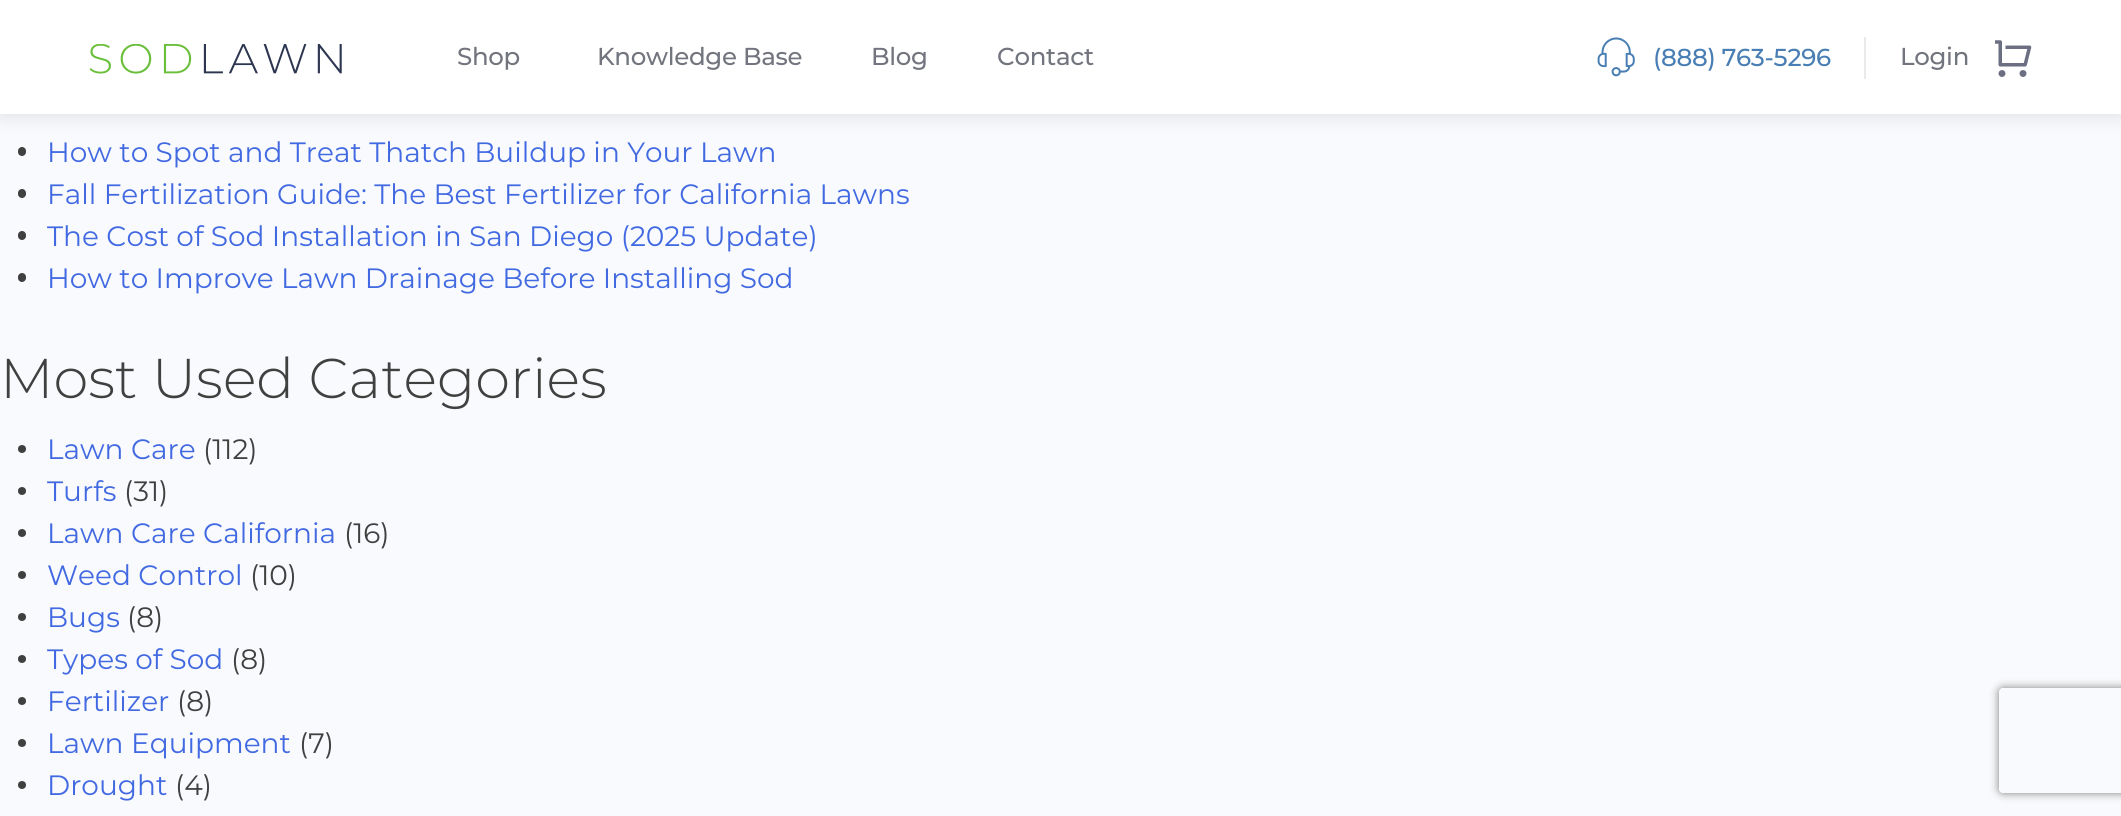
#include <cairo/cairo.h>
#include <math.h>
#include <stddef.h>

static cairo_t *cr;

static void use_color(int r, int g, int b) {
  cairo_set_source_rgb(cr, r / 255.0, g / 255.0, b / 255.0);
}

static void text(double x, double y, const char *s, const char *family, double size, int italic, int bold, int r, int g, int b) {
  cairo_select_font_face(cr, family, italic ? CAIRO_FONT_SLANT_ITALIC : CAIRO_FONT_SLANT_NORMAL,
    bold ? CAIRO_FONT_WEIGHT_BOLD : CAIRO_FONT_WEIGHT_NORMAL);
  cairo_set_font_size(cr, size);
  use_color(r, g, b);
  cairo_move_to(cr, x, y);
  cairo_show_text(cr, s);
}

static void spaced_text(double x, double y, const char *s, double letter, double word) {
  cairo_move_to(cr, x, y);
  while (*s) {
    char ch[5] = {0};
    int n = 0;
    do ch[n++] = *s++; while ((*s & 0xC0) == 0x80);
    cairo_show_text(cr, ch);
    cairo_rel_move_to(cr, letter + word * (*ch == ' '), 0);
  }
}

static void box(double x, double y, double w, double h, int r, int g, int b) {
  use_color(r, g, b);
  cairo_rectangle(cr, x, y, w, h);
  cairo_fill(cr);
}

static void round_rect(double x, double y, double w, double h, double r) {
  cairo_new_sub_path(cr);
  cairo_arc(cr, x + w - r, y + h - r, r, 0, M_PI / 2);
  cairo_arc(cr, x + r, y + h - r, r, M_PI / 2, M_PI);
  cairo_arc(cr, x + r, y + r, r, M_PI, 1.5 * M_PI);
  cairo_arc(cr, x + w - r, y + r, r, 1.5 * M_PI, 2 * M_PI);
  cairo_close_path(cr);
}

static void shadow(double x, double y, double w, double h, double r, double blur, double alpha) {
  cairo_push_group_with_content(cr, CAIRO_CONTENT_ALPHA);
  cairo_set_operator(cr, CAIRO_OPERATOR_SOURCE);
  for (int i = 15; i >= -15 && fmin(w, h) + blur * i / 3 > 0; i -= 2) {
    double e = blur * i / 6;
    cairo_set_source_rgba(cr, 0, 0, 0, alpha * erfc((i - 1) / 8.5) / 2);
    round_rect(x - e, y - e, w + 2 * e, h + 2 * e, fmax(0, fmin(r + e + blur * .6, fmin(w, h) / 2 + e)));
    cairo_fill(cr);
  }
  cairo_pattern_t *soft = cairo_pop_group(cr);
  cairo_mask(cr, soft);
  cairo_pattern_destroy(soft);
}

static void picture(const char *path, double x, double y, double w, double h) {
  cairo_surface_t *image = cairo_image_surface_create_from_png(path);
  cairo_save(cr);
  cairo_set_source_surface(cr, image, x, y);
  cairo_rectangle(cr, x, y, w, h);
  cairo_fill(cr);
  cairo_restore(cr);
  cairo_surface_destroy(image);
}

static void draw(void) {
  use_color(249, 250, 253);
  cairo_paint(cr);
  use_color(0, 0, 0);
  shadow(0, 4, 2121, 113, 0, 9, 0.1);
  box(0, 0, 2121, 114, 255, 255, 255);
  picture("img_01.png", 89, 44, 253, 30);
  picture("img_02.png", 1597, 37, 38, 40);
  box(1864, 37, 2, 42, 234, 234, 234);
  picture("img_03.png", 1995, 40, 37, 37);
  use_color(64, 64, 64);
  round_rect(18, 147, 8, 9, 4);
  cairo_fill(cr);
  round_rect(18, 189, 8, 9, 4);
  cairo_fill(cr);
  round_rect(18, 231, 8, 9, 4);
  cairo_fill(cr);
  round_rect(18, 273, 8, 9, 4);
  cairo_fill(cr);
  cairo_arc(cr, 22, 449, 4, 0, 2 * M_PI);
  cairo_fill(cr);
  cairo_arc(cr, 22, 491, 4, 0, 2 * M_PI);
  cairo_fill(cr);
  cairo_arc(cr, 22, 533, 4, 0, 2 * M_PI);
  cairo_fill(cr);
  cairo_arc(cr, 22, 575, 4, 0, 2 * M_PI);
  cairo_fill(cr);
  cairo_arc(cr, 22, 617, 4, 0, 2 * M_PI);
  cairo_fill(cr);
  cairo_arc(cr, 22, 659, 4, 0, 2 * M_PI);
  cairo_fill(cr);
  cairo_arc(cr, 22, 701, 4, 0, 2 * M_PI);
  cairo_fill(cr);
  cairo_arc(cr, 22, 743, 4, 0, 2 * M_PI);
  cairo_fill(cr);
  cairo_arc(cr, 22, 785, 4, 0, 2 * M_PI);
  cairo_fill(cr);
  cairo_save(cr);
  cairo_set_fill_rule(cr, CAIRO_FILL_RULE_EVEN_ODD);
  cairo_new_path(cr);
  cairo_move_to(cr, 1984, 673);
  cairo_line_to(cr, 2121, 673);
  cairo_line_to(cr, 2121, 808);
  cairo_line_to(cr, 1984, 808);
  cairo_close_path(cr);
  cairo_move_to(cr, 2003, 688);
  cairo_line_to(cr, 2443, 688);
  cairo_curve_to(cr, 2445, 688, 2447, 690, 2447, 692);
  cairo_line_to(cr, 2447, 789);
  cairo_curve_to(cr, 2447, 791, 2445, 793, 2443, 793);
  cairo_line_to(cr, 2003, 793);
  cairo_curve_to(cr, 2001, 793, 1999, 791, 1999, 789);
  cairo_line_to(cr, 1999, 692);
  cairo_curve_to(cr, 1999, 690, 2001, 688, 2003, 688);
  cairo_close_path(cr);
  cairo_clip(cr);
  use_color(128, 128, 128);
  shadow(1999, 688, 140, 105, 4, 4.5, 1);
  cairo_restore(cr);
  cairo_select_font_face(cr, "Montserrat Medium", CAIRO_FONT_SLANT_NORMAL, CAIRO_FONT_WEIGHT_NORMAL);
  cairo_set_font_size(cr, 24.5);
  use_color(114, 116, 126);
  spaced_text(457, 65, "Shop", -0.3, 0);
  spaced_text(597, 65, "Knowledge Base", -0.3, 0);
  spaced_text(871, 65, "Blog", -0.3, 0);
  spaced_text(997, 65, "Contact", -0.3, 0);
  use_color(72, 126, 179);
  spaced_text(1653, 66, "(888) 763-5296", -0.3, 0);
  use_color(114, 116, 126);
  spaced_text(1900, 65, "Login", -0.3, 0);
  text(47, 162, "How to Spot and Treat Thatch Buildup in Your Lawn", "Montserrat", 28, 0, 0, 65, 105, 225);
  text(47, 204, "Fall Fertilization Guide: The Best Fertilizer for California Lawns", "Montserrat", 28, 0, 0, 65, 105, 225);
  text(47, 246, "The Cost of Sod Installation in San Diego (2025 Update)", "Montserrat", 28, 0, 0, 65, 105, 225);
  text(47, 288, "How to Improve Lawn Drainage Before Installing Sod", "Montserrat", 28, 0, 0, 65, 105, 225);
  text(0, 398, "Most Used Categories", "Montserrat Light", 56, 0, 0, 64, 64, 64);
  text(47, 459, "Lawn Care", "Montserrat", 28, 0, 0, 65, 105, 225);
  text(203, 459, "(112)", "Montserrat", 28, 0, 0, 64, 64, 64);
  text(47, 501, "Turfs", "Montserrat", 28, 0, 0, 65, 105, 225);
  text(124, 501, "(31)", "Montserrat", 28, 0, 0, 64, 64, 64);
  text(47, 543, "Lawn Care California", "Montserrat", 28, 0, 0, 65, 105, 225);
  text(344, 543, "(16)", "Montserrat", 28, 0, 0, 64, 64, 64);
  text(47, 585, "Weed Control", "Montserrat", 28, 0, 0, 65, 105, 225);
  text(250, 585, "(10)", "Montserrat", 28, 0, 0, 64, 64, 64);
  text(47, 627, "Bugs", "Montserrat", 28, 0, 0, 65, 105, 225);
  text(127, 627, "(8)", "Montserrat", 28, 0, 0, 64, 64, 64);
  text(47, 669, "Types of Sod", "Montserrat", 28, 0, 0, 65, 105, 225);
  text(231, 669, "(8)", "Montserrat", 28, 0, 0, 64, 64, 64);
  text(47, 711, "Fertilizer", "Montserrat", 28, 0, 0, 65, 105, 225);
  text(177, 711, "(8)", "Montserrat", 28, 0, 0, 64, 64, 64);
  text(47, 753, "Lawn Equipment", "Montserrat", 28, 0, 0, 65, 105, 225);
  text(299, 753, "(7)", "Montserrat", 28, 0, 0, 64, 64, 64);
  text(47, 795, "Drought", "Montserrat", 28, 0, 0, 65, 105, 225);
  text(175, 795, "(4)", "Montserrat", 28, 0, 0, 64, 64, 64);
}

int main(void) {
  cairo_surface_t *surface = cairo_image_surface_create(CAIRO_FORMAT_RGB24, 2121, 816);
  cr = cairo_create(surface);
  cairo_font_options_t *options = cairo_font_options_create();
  cairo_font_options_set_hint_metrics(options, CAIRO_HINT_METRICS_OFF);
  cairo_font_options_set_hint_style(options, CAIRO_HINT_STYLE_NONE);
  cairo_set_font_options(cr, options);
  cairo_set_miter_limit(cr, 4);
  draw();
  cairo_surface_write_to_png(surface, "out.png");
  cairo_font_options_destroy(options);
  cairo_destroy(cr);
  cairo_surface_destroy(surface);
  return 0;
}
